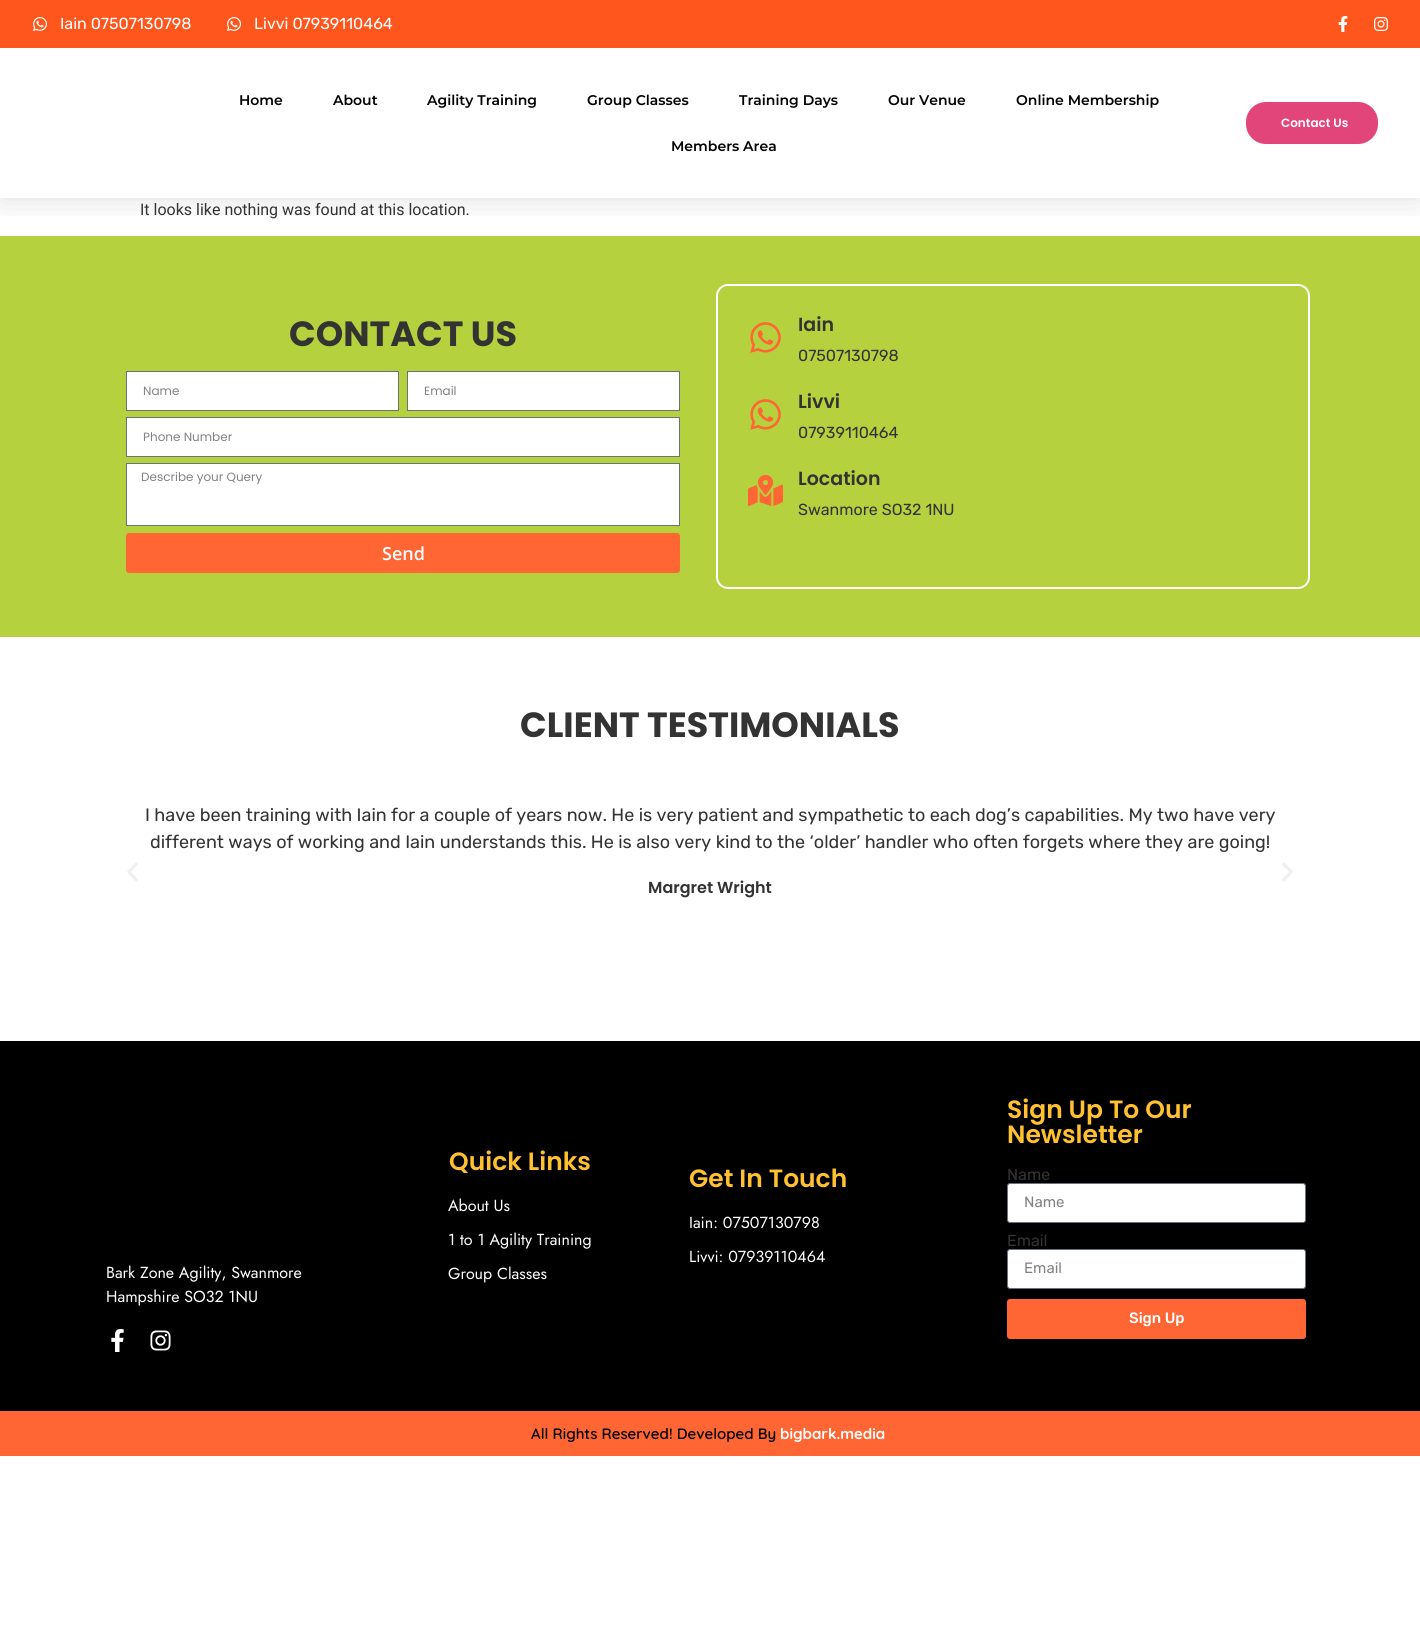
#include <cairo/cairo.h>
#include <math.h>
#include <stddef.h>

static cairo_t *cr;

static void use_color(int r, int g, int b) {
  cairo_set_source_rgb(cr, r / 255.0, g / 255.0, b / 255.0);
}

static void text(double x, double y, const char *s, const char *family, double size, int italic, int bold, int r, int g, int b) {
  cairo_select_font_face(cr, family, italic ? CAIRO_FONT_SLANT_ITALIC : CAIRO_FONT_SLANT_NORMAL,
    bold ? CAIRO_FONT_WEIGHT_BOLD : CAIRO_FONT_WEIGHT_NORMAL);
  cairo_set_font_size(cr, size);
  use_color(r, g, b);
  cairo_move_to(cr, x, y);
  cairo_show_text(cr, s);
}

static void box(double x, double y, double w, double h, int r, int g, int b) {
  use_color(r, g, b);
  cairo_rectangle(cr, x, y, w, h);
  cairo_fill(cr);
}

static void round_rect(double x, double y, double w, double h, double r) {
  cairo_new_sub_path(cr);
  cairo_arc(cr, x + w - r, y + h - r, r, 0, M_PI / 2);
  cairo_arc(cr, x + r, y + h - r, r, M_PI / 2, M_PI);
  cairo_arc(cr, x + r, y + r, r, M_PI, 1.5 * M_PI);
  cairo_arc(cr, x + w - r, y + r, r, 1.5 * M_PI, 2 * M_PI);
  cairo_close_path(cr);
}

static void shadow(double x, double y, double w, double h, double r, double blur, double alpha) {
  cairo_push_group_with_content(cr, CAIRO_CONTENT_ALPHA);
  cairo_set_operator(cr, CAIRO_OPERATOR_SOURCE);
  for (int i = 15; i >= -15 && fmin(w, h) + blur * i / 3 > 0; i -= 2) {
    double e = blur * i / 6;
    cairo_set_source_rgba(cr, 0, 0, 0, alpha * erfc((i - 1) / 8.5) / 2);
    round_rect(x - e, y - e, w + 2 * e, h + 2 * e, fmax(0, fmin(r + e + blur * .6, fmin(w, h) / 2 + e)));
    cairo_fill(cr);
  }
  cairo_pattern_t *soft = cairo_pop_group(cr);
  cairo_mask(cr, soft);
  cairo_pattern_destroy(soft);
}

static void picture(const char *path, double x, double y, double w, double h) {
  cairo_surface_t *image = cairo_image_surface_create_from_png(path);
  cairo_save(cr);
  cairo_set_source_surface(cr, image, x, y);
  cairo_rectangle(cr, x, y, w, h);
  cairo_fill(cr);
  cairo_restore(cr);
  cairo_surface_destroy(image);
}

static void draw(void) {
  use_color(255, 255, 255);
  cairo_paint(cr);
  box(0, 236, 1420, 401, 181, 209, 61);
  cairo_save(cr);
  cairo_rectangle(cr, 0, 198, 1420, 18);
  cairo_clip(cr);
  use_color(0, 0, 0);
  shadow(0, 5, 1420, 198, 0, 15, 0.1);
  cairo_restore(cr);
  box(0, 0, 1420, 48, 255, 86, 29);
  picture("img_01.png", 33, 17, 14, 14);
  picture("img_01.png", 227, 17, 14, 14);
  picture("img_02.png", 1338, 16, 10, 16);
  picture("img_03.png", 1374, 17, 14, 14);
  use_color(226, 69, 122);
  round_rect(1246, 102, 132, 42, 20);
  cairo_fill(cr);
  use_color(255, 255, 255);
  cairo_rectangle(cr, 126.5, 371.5, 272, 39);
  cairo_fill_preserve(cr);
  use_color(105, 114, 125);
  cairo_set_line_width(cr, 1);
  cairo_stroke(cr);
  use_color(255, 255, 255);
  cairo_rectangle(cr, 407.5, 371.5, 272, 39);
  cairo_fill_preserve(cr);
  use_color(105, 114, 125);
  cairo_stroke(cr);
  use_color(255, 255, 255);
  cairo_rectangle(cr, 126.5, 417.5, 553, 39);
  cairo_fill_preserve(cr);
  use_color(105, 114, 125);
  cairo_stroke(cr);
  use_color(255, 255, 255);
  cairo_rectangle(cr, 126.5, 463.5, 553, 62);
  cairo_fill_preserve(cr);
  use_color(105, 114, 125);
  cairo_stroke(cr);
  use_color(255, 102, 51);
  round_rect(126, 533, 554, 40, 3);
  cairo_fill(cr);
  round_rect(717, 285, 592, 303, 11);
  use_color(255, 255, 255);
  cairo_set_line_width(cr, 2);
  cairo_stroke(cr);
  picture("img_04.png", 750, 322, 31, 31);
  picture("img_04.png", 750, 399, 31, 31);
  picture("img_05.png", 748, 475, 35, 31);
  picture("img_06.png", 127, 862, 11, 20);
  picture("img_07.png", 1282, 862, 11, 20);
  box(0, 1041, 1420, 370, 0, 0, 0);
  use_color(255, 255, 255);
  round_rect(1007.5, 1183.5, 298, 39, 2.5);
  cairo_fill_preserve(cr);
  use_color(105, 114, 125);
  cairo_set_line_width(cr, 1);
  cairo_stroke(cr);
  use_color(255, 255, 255);
  round_rect(1007.5, 1249.5, 298, 39, 2.5);
  cairo_fill_preserve(cr);
  use_color(105, 114, 125);
  cairo_stroke(cr);
  use_color(255, 102, 51);
  round_rect(1007, 1299, 299, 40, 3);
  cairo_fill(cr);
  picture("img_08.png", 111, 1329, 13, 23);
  picture("img_09.png", 150, 1330, 21, 21);
  box(0, 1411, 1420, 45, 255, 102, 51);
  text(60, 29, "Iain 07507130798", "Rubik", 16, 0, 0, 255, 255, 255);
  text(254, 29, "Livvi 07939110464", "Rubik", 16, 0, 0, 255, 255, 255);
  text(239, 105, "Home", "Montserrat SemiBold", 14, 0, 0, 0, 0, 0);
  text(333, 105, "About", "Montserrat SemiBold", 14, 0, 0, 0, 0, 0);
  text(427, 105, "Agility Training", "Montserrat SemiBold", 14, 0, 0, 0, 0, 0);
  text(587, 105, "Group Classes", "Montserrat SemiBold", 14, 0, 0, 0, 0, 0);
  text(739, 105, "Training Days", "Montserrat SemiBold", 14, 0, 0, 0, 0, 0);
  text(888, 105, "Our Venue", "Montserrat SemiBold", 14, 0, 0, 0, 0, 0);
  text(1016, 105, "Online Membership", "Montserrat SemiBold", 14, 0, 0, 0, 0, 0);
  text(671, 151, "Members Area", "Montserrat SemiBold", 14, 0, 0, 0, 0, 0);
  text(1281, 127, "Contact Us", "Poppins SemiBold", 12, 0, 0, 255, 255, 255);
  text(140, 215, "It looks like nothing was found at this location.", "Roboto", 16, 0, 0, 51, 51, 51);
  text(289, 346, "CONTACT US", "Poppins", 35, 0, 1, 51, 51, 51);
  text(143, 395, "Name", "Poppins", 12, 0, 0, 130, 130, 130);
  text(424, 395, "Email", "Poppins", 12, 0, 0, 130, 130, 130);
  text(143, 441, "Phone Number", "Poppins", 12, 0, 0, 130, 130, 130);
  text(141, 481, "Describe your Query", "Poppins", 12, 0, 0, 130, 130, 130);
  text(382, 560, "Send", "Open Sans SemiBold", 18, 0, 0, 255, 255, 255);
  text(798, 331, "Iain", "Poppins SemiBold", 19, 0, 0, 51, 51, 51);
  text(798, 361, "07507130798", "Rubik", 16, 0, 0, 51, 51, 51);
  text(798, 408, "Livvi", "Poppins SemiBold", 19, 0, 0, 51, 51, 51);
  text(798, 438, "07939110464", "Rubik", 16, 0, 0, 51, 51, 51);
  text(798, 485, "Location", "Poppins SemiBold", 19, 0, 0, 51, 51, 51);
  text(798, 515, "Swanmore SO32 1NU", "Rubik", 16, 0, 0, 51, 51, 51);
  text(520, 737, "CLIENT TESTIMONIALS", "Poppins", 35, 0, 1, 51, 51, 51);
  text(145, 821, "I have been training with Iain for a couple of years now. He is very patient and sympathetic to each dog’s capabilities. My two have very", "Rubik", 18, 0, 0, 51, 51, 51);
  text(150, 848, "different ways of working and Iain understands this. He is also very kind to the ‘older’ handler who often forgets where they are going!", "Rubik", 18, 0, 0, 51, 51, 51);
  text(648, 893, "Margret Wright", "Poppins SemiBold", 16, 0, 0, 51, 51, 51);
  text(449, 1170, "Quick Links", "Poppins SemiBold", 25, 0, 0, 255, 193, 48);
  text(448, 1211, "About Us", "Jost", 16, 0, 0, 255, 255, 255);
  text(448, 1245, "1 to 1 Agility Training", "Jost", 16, 0, 0, 255, 255, 255);
  text(448, 1279, "Group Classes", "Jost", 16, 0, 0, 255, 255, 255);
  text(689, 1187, "Get In Touch", "Poppins SemiBold", 25, 0, 0, 255, 193, 48);
  text(689, 1228, "Iain: 07507130798", "Jost", 16, 0, 0, 255, 255, 255);
  text(689, 1262, "Livvi: 07939110464", "Jost", 16, 0, 0, 255, 255, 255);
  text(1007, 1118, "Sign Up To Our", "Poppins SemiBold", 25, 0, 0, 255, 193, 48);
  text(1007, 1143, "Newsletter", "Poppins SemiBold", 25, 0, 0, 255, 193, 48);
  text(1007, 1180, "Name", "Rubik", 16, 0, 0, 51, 51, 51);
  text(1024, 1207, "Name", "Rubik", 15, 0, 0, 130, 130, 130);
  text(1007, 1246, "Email", "Rubik", 16, 0, 0, 51, 51, 51);
  text(1024, 1273, "Email", "Rubik", 15, 0, 0, 130, 130, 130);
  text(1129, 1323, "Sign Up", "Rubik Medium", 15, 0, 0, 255, 255, 255);
  text(106, 1278, "Bark Zone Agility, Swanmore", "Jost", 16, 0, 0, 255, 255, 255);
  text(106, 1302, "Hampshire SO32 1NU", "Jost", 16, 0, 0, 255, 255, 255);
  text(531, 1439, "All Rights Reserved! Developed By", "Quicksand SemiBold", 15, 0, 0, 0, 0, 0);
  text(780, 1439, "bigbark.media", "Quicksand", 15, 0, 1, 255, 255, 255);
}

int main(void) {
  cairo_surface_t *surface = cairo_image_surface_create(CAIRO_FORMAT_RGB24, 1420, 1633);
  cr = cairo_create(surface);
  cairo_font_options_t *options = cairo_font_options_create();
  cairo_font_options_set_hint_metrics(options, CAIRO_HINT_METRICS_OFF);
  cairo_font_options_set_hint_style(options, CAIRO_HINT_STYLE_NONE);
  cairo_set_font_options(cr, options);
  cairo_set_miter_limit(cr, 4);
  draw();
  cairo_surface_write_to_png(surface, "out.png");
  cairo_font_options_destroy(options);
  cairo_destroy(cr);
  cairo_surface_destroy(surface);
  return 0;
}
